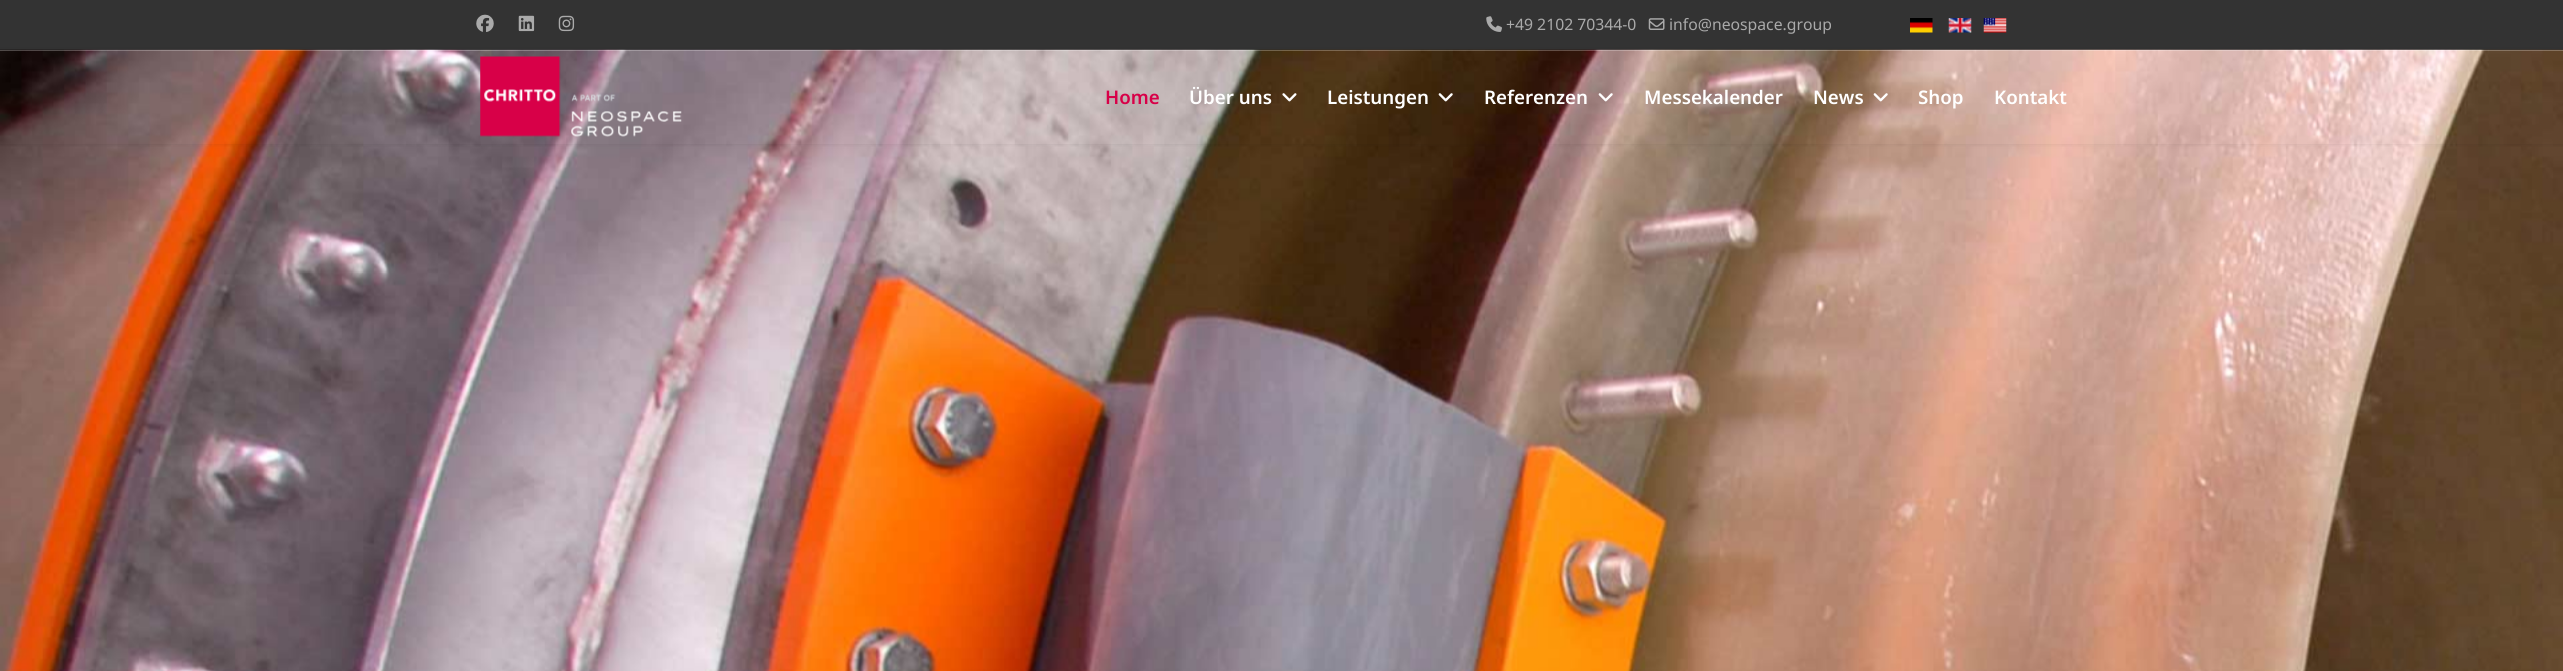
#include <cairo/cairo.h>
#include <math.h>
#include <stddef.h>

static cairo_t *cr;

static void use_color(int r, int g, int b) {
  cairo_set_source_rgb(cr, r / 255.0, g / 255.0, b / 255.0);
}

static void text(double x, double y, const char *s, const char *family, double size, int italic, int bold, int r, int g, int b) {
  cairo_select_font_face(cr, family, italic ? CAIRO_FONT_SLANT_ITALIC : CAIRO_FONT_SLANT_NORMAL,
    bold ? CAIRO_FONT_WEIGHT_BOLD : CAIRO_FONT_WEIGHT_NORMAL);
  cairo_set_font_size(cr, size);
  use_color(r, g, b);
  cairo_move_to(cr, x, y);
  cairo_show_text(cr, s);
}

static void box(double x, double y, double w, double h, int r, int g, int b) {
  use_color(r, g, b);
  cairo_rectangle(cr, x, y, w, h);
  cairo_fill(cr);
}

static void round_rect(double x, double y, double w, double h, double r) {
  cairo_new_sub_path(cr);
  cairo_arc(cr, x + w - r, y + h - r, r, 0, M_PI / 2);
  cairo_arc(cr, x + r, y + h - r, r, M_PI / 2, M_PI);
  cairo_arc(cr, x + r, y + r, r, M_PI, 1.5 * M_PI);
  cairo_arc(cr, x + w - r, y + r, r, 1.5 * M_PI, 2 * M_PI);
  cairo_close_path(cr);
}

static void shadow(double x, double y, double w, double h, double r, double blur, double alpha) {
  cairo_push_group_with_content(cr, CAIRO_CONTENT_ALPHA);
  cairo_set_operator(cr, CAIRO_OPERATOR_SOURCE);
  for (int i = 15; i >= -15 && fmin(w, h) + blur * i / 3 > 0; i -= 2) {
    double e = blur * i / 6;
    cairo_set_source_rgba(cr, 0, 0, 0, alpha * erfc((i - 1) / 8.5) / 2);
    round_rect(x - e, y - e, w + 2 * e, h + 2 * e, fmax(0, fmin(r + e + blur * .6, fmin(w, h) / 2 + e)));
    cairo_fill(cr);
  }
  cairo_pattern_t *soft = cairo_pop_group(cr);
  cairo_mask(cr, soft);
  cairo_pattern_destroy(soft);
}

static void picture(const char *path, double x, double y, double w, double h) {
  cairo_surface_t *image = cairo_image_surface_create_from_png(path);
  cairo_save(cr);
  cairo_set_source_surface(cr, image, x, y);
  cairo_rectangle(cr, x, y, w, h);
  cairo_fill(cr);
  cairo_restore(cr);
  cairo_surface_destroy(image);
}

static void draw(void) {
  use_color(255, 255, 255);
  cairo_paint(cr);
  box(0, 0, 2563, 50, 51, 51, 51);
  picture("img_01.png", 476, 14, 18, 18);
  picture("img_02.png", 518, 15, 17, 17);
  picture("img_03.png", 558, 15, 17, 17);
  picture("img_04.png", 1486, 16, 16, 16);
  picture("img_05.png", 1648, 18, 17, 12);
  picture("img_06.png", 1910, 18, 23, 15);
  picture("img_07.png", 1948, 18, 24, 15);
  picture("img_08.png", 1983, 18, 24, 15);
  picture("img_09.png", 0, 49, 2563, 622);
  cairo_save(cr);
  cairo_set_fill_rule(cr, CAIRO_FILL_RULE_EVEN_ODD);
  cairo_new_path(cr);
  cairo_move_to(cr, 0, 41);
  cairo_line_to(cr, 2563, 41);
  cairo_line_to(cr, 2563, 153);
  cairo_line_to(cr, 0, 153);
  cairo_close_path(cr);
  cairo_move_to(cr, 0, 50);
  cairo_line_to(cr, 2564, 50);
  cairo_line_to(cr, 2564, 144);
  cairo_line_to(cr, 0, 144);
  cairo_close_path(cr);
  cairo_clip(cr);
  use_color(0, 0, 0);
  shadow(0, 50, 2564, 94, 0, 2.5, 0.1);
  cairo_restore(cr);
  picture("img_10.png", 480, 56, 202, 81);
  picture("img_11.png", 1282, 93, 15, 9);
  picture("img_12.png", 1438, 93, 15, 9);
  picture("img_13.png", 1598, 93, 15, 9);
  picture("img_14.png", 1873, 93, 15, 9);
  text(1506, 30, "+49 2102 70344-0", "Noto Sans", 15.75, 0, 0, 170, 170, 170);
  text(1669, 30, "info@neospace.group", "Noto Sans", 15.75, 0, 0, 170, 170, 170);
  text(1105, 104, "Home", "Noto Sans SemiBold", 18.75, 0, 0, 216, 0, 72);
  text(1189, 104, "Über uns", "Noto Sans SemiBold", 18.75, 0, 0, 255, 255, 255);
  text(1327, 104, "Leistungen", "Noto Sans SemiBold", 18.75, 0, 0, 255, 255, 255);
  text(1484, 104, "Referenzen", "Noto Sans SemiBold", 18.75, 0, 0, 255, 255, 255);
  text(1644, 104, "Messekalender", "Noto Sans SemiBold", 18.75, 0, 0, 255, 255, 255);
  text(1813, 104, "News", "Noto Sans SemiBold", 18.75, 0, 0, 255, 255, 255);
  text(1918, 104, "Shop", "Noto Sans SemiBold", 18.75, 0, 0, 255, 255, 255);
  text(1994, 104, "Kontakt", "Noto Sans SemiBold", 18.75, 0, 0, 255, 255, 255);
}

int main(void) {
  cairo_surface_t *surface = cairo_image_surface_create(CAIRO_FORMAT_RGB24, 2563, 671);
  cr = cairo_create(surface);
  cairo_font_options_t *options = cairo_font_options_create();
  cairo_font_options_set_hint_metrics(options, CAIRO_HINT_METRICS_OFF);
  cairo_font_options_set_hint_style(options, CAIRO_HINT_STYLE_NONE);
  cairo_set_font_options(cr, options);
  cairo_set_miter_limit(cr, 4);
  draw();
  cairo_surface_write_to_png(surface, "out.png");
  cairo_font_options_destroy(options);
  cairo_destroy(cr);
  cairo_surface_destroy(surface);
  return 0;
}
